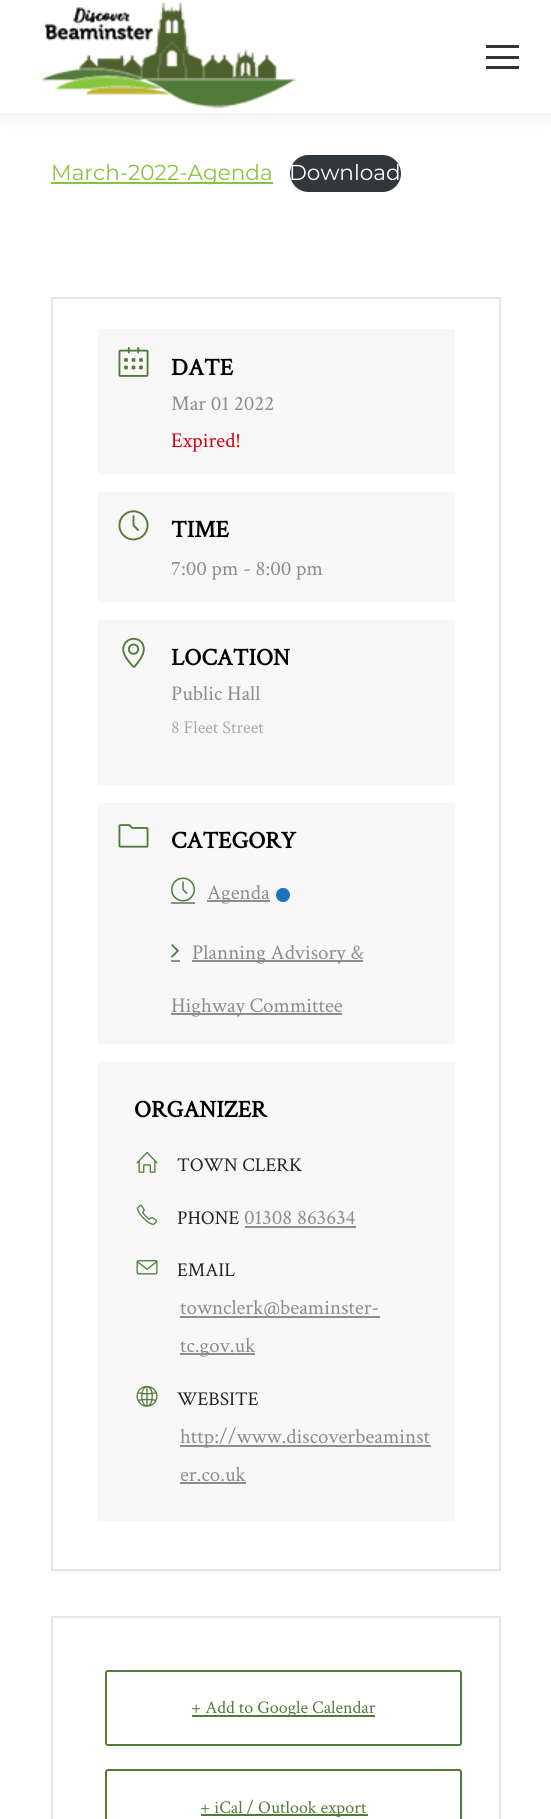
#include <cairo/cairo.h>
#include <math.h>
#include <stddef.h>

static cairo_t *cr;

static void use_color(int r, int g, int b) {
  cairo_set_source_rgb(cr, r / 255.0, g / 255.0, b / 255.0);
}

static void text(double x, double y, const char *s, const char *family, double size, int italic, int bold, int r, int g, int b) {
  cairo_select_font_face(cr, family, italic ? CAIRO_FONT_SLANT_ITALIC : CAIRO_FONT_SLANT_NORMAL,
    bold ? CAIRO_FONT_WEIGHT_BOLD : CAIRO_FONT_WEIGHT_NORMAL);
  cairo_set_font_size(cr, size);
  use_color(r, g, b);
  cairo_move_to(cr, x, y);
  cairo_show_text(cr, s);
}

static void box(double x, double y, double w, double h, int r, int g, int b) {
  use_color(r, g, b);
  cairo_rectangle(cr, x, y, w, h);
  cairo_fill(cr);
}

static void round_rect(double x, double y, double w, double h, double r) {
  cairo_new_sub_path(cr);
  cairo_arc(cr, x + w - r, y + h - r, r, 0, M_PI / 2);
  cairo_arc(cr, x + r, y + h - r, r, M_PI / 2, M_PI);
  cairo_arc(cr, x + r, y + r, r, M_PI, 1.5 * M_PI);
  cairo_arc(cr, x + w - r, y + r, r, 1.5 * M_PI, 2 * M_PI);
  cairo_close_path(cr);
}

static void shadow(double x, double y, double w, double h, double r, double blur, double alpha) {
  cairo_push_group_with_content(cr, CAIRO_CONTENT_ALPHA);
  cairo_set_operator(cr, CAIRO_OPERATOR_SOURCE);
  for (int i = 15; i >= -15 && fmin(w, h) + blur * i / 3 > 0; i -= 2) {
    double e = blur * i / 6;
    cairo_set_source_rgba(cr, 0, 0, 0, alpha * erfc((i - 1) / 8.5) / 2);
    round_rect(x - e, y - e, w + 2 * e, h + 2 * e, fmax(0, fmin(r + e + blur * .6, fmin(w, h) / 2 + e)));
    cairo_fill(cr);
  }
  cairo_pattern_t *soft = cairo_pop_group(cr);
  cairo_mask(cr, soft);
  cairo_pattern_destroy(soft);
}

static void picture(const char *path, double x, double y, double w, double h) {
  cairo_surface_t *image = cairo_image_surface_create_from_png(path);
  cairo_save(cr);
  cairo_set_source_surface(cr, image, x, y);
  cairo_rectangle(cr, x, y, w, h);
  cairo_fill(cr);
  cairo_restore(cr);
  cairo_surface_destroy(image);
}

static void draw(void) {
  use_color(255, 255, 255);
  cairo_paint(cr);
  use_color(0, 0, 0);
  shadow(-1, -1, 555, 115, 0, 11, 0.07);
  box(0, 0, 551, 113, 255, 255, 255);
  picture("img_01.png", 42, 2, 254, 107);
  box(486, 45, 33, 3, 51, 51, 51);
  box(486, 56, 33, 3, 51, 51, 51);
  box(486, 66, 33, 3, 51, 51, 51);
  box(51, 182, 222, 2, 137, 196, 64);
  use_color(50, 55, 60);
  round_rect(290, 155, 111, 37, 18.5);
  cairo_fill(cr);
  box(51, 1571, 450, 3, 251, 251, 251);
  cairo_rectangle(cr, 52, 298, 448, 1272);
  use_color(230, 230, 230);
  cairo_stroke(cr);
  box(98, 329, 357, 145, 247, 247, 247);
  picture("img_02.png", 118, 346, 31, 31);
  box(98, 492, 357, 110, 247, 247, 247);
  picture("img_03.png", 118, 510, 31, 31);
  box(98, 620, 357, 165, 247, 247, 247);
  picture("img_04.png", 122, 637, 23, 31);
  box(98, 803, 357, 241, 247, 247, 247);
  picture("img_05.png", 118, 824, 31, 24);
  picture("img_06.png", 171, 877, 24, 25);
  box(207, 900, 63, 2, 141, 141, 141);
  use_color(30, 115, 190);
  cairo_arc(cr, 283, 895, 7, 0, 2 * M_PI);
  cairo_fill(cr);
  box(171, 902, 24, 2, 141, 141, 141);
  picture("img_07.png", 171, 944, 8, 14);
  box(171, 960, 9, 2, 141, 141, 141);
  box(192, 960, 171, 2, 141, 141, 141);
  box(171, 1013, 171, 2, 141, 141, 141);
  box(98, 1062, 357, 459, 247, 247, 247);
  picture("img_08.png", 136, 1151, 22, 22);
  picture("img_09.png", 136, 1204, 22, 21);
  box(245, 1226, 111, 2, 141, 141, 141);
  picture("img_10.png", 136, 1260, 22, 15);
  box(180, 1316, 200, 2, 141, 141, 141);
  box(180, 1353, 75, 2, 141, 141, 141);
  picture("img_11.png", 136, 1385, 22, 22);
  box(180, 1445, 251, 2, 141, 141, 141);
  box(180, 1482, 66, 2, 141, 141, 141);
  cairo_rectangle(cr, 52, 1617, 448, 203);
  use_color(230, 230, 230);
  cairo_stroke(cr);
  use_color(247, 247, 247);
  cairo_new_path(cr);
  cairo_move_to(cr, 105, 1743);
  cairo_curve_to(cr, 105, 1745, 105, 1749, 108, 1749);
  cairo_line_to(cr, 459, 1749);
  cairo_curve_to(cr, 462, 1749, 462, 1745, 462, 1743);
  cairo_curve_to(cr, 462, 1745, 461, 1746, 459, 1746);
  cairo_line_to(cr, 108, 1746);
  cairo_curve_to(cr, 106, 1746, 105, 1745, 105, 1743);
  cairo_close_path(cr);
  cairo_fill(cr);
  round_rect(106, 1671, 355, 74, 2);
  use_color(82, 123, 57);
  cairo_stroke(cr);
  box(192, 1715, 183, 2, 82, 123, 57);
  round_rect(106, 1770, 355, 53, 2);
  cairo_stroke(cr);
  box(201, 1814, 167, 2, 82, 123, 57);
  text(51, 180, "March-2022-Agenda", "Montserrat", 21.6, 0, 0, 137, 196, 64);
  text(289, 180, "Download", "Montserrat", 21.6, 0, 0, 255, 255, 255);
  text(171, 375, "DATE", "Crimson Text", 24, 0, 1, 0, 0, 0);
  text(171, 410, "Mar 01 2022", "Crimson Text", 21, 0, 0, 141, 141, 141);
  text(171, 447, "Expired!", "Crimson Text", 21, 0, 0, 216, 0, 12);
  text(171, 537, "TIME", "Crimson Text", 24, 0, 1, 0, 0, 0);
  text(171, 575, "7:00 pm - 8:00 pm", "Crimson Text", 21, 0, 0, 141, 141, 141);
  text(171, 665, "LOCATION", "Crimson Text", 24, 0, 1, 0, 0, 0);
  text(171, 700, "Public Hall", "Crimson Text", 21, 0, 0, 141, 141, 141);
  text(171, 733, "8 Fleet Street", "Crimson Text", 18, 0, 0, 169, 169, 169);
  text(171, 848, "CATEGORY", "Crimson Text", 24, 0, 1, 0, 0, 0);
  text(207, 899, "Agenda", "Crimson Text", 21, 0, 0, 141, 141, 141);
  text(192, 959, "Planning Advisory &", "Crimson Text", 21, 0, 0, 141, 141, 141);
  text(171, 1012, "Highway Committee", "Crimson Text", 21, 0, 0, 141, 141, 141);
  text(134, 1117, "ORGANIZER", "Crimson Text", 24, 0, 1, 0, 0, 0);
  text(177, 1171, "TOWN CLERK", "Crimson Text", 19.5, 0, 0, 34, 34, 34);
  text(177, 1224, "PHONE", "Crimson Text", 19.5, 0, 0, 34, 34, 34);
  text(244, 1224, "01308 863634", "Crimson Text", 21, 0, 0, 141, 141, 141);
  text(177, 1276, "EMAIL", "Crimson Text", 19.5, 0, 0, 34, 34, 34);
  text(180, 1314, "townclerk@beaminster-", "Crimson Text", 21, 0, 0, 141, 141, 141);
  text(180, 1352, "tc.gov.uk", "Crimson Text", 21, 0, 0, 141, 141, 141);
  text(177, 1405, "WEBSITE", "Crimson Text", 19.5, 0, 0, 34, 34, 34);
  text(180, 1443, "http://www.discoverbeaminst", "Crimson Text", 21, 0, 0, 141, 141, 141);
  text(180, 1481, "er.co.uk", "Crimson Text", 21, 0, 0, 141, 141, 141);
  text(191, 1713, "+ Add to Google Calendar", "Crimson Text", 18, 0, 0, 82, 123, 57);
  text(200, 1813, "+ iCal / Outlook export", "Crimson Text", 18, 0, 0, 82, 123, 57);
}

int main(void) {
  cairo_surface_t *surface = cairo_image_surface_create(CAIRO_FORMAT_RGB24, 551, 1819);
  cr = cairo_create(surface);
  cairo_font_options_t *options = cairo_font_options_create();
  cairo_font_options_set_hint_metrics(options, CAIRO_HINT_METRICS_OFF);
  cairo_font_options_set_hint_style(options, CAIRO_HINT_STYLE_NONE);
  cairo_set_font_options(cr, options);
  cairo_set_miter_limit(cr, 4);
  draw();
  cairo_surface_write_to_png(surface, "out.png");
  cairo_font_options_destroy(options);
  cairo_destroy(cr);
  cairo_surface_destroy(surface);
  return 0;
}
